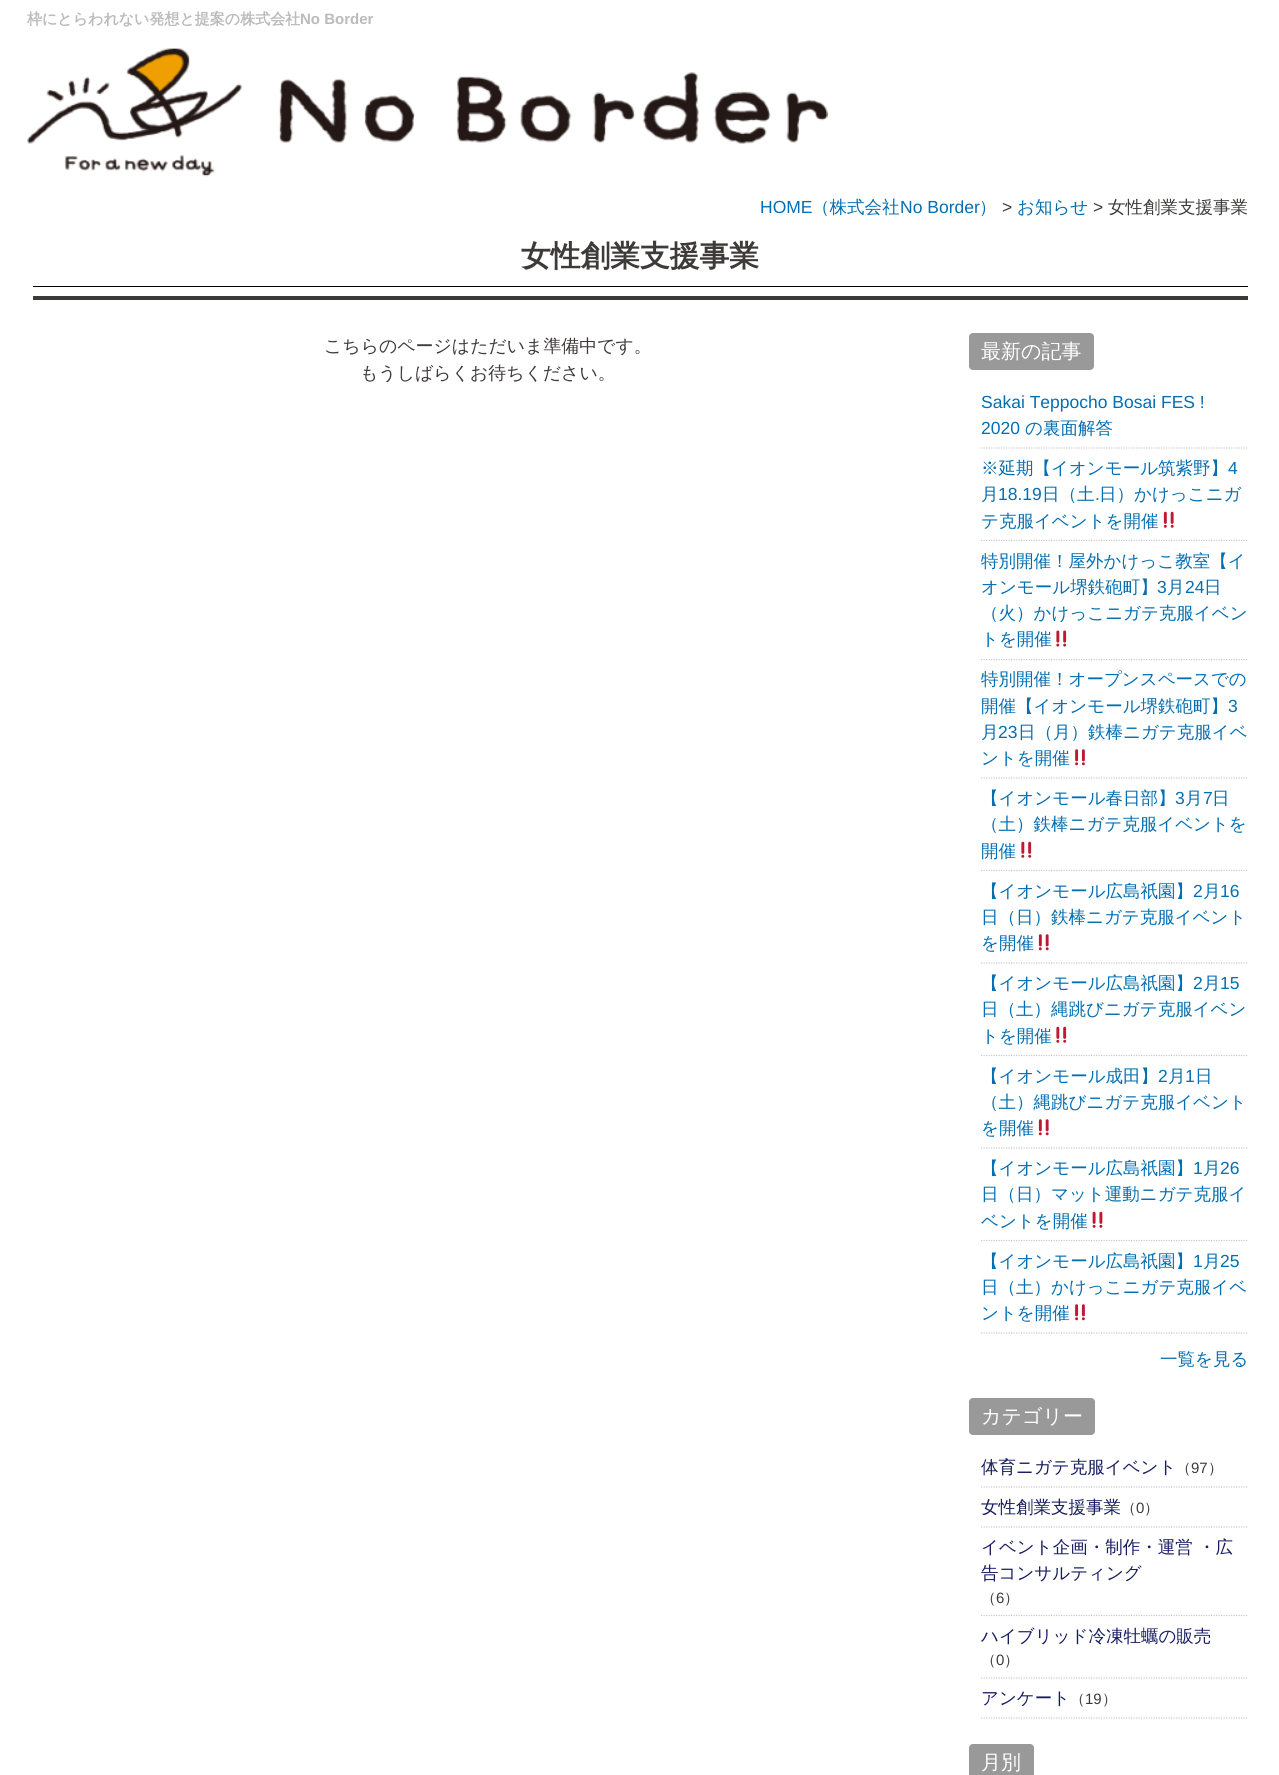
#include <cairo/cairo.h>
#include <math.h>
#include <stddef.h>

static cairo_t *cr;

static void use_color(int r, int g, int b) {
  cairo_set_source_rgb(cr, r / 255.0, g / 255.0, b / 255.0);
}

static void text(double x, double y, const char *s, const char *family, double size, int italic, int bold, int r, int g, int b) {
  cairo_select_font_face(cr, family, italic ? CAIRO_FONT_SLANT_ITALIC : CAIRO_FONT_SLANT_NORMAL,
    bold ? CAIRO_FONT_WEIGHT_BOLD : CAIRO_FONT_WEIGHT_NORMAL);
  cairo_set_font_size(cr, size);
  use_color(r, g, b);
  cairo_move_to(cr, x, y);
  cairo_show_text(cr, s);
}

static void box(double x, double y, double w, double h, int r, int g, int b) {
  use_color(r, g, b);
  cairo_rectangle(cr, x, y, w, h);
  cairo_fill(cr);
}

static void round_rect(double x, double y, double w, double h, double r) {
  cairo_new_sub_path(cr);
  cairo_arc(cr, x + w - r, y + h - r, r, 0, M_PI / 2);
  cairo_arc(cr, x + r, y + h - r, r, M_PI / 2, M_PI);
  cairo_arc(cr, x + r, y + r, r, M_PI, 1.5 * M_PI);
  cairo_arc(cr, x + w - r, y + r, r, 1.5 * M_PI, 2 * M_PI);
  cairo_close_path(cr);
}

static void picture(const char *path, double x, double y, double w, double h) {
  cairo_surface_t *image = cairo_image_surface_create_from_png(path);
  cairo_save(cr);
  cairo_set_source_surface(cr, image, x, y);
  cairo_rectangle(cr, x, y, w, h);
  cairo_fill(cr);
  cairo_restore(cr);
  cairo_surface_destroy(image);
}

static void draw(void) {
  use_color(255, 255, 255);
  cairo_paint(cr);
  picture("img_01.png", 27, 48, 801, 129);
  box(33, 286, 1215, 1, 0, 0, 0);
  box(33, 296, 1215, 4, 62, 58, 57);
  use_color(153, 153, 153);
  round_rect(969, 333, 125, 37, 4);
  cairo_fill(cr);
  cairo_new_path(cr);
  cairo_move_to(cr, 981, 448);
  cairo_line_to(cr, 1247.5, 448);
  use_color(204, 204, 204);
  cairo_set_line_width(cr, 1.2);
  cairo_set_dash(cr, (double[]){1.25, 1.25}, 2, 0);
  cairo_stroke(cr);
  cairo_new_path(cr);
  cairo_move_to(cr, 981, 540.5);
  cairo_line_to(cr, 1247.5, 540.5);
  cairo_stroke(cr);
  picture("img_02.png", 1163, 511, 11, 17);
  cairo_new_path(cr);
  cairo_move_to(cr, 981, 659.5);
  cairo_line_to(cr, 1247.5, 659.5);
  cairo_stroke(cr);
  picture("img_03.png", 1056, 630, 11, 17);
  cairo_new_path(cr);
  cairo_move_to(cr, 981, 778);
  cairo_line_to(cr, 1247.5, 778);
  cairo_stroke(cr);
  picture("img_04.png", 1075, 749, 10, 17);
  cairo_new_path(cr);
  cairo_move_to(cr, 981, 870.5);
  cairo_line_to(cr, 1247.5, 870.5);
  cairo_stroke(cr);
  picture("img_05.png", 1021, 841, 11, 17);
  cairo_new_path(cr);
  cairo_move_to(cr, 981, 963);
  cairo_line_to(cr, 1247.5, 963);
  cairo_stroke(cr);
  picture("img_06.png", 1038, 934, 11, 17);
  cairo_new_path(cr);
  cairo_move_to(cr, 981, 1055.5);
  cairo_line_to(cr, 1247.5, 1055.5);
  cairo_stroke(cr);
  picture("img_05.png", 1056, 1026, 11, 17);
  cairo_new_path(cr);
  cairo_move_to(cr, 981, 1148);
  cairo_line_to(cr, 1247.5, 1148);
  cairo_stroke(cr);
  picture("img_06.png", 1038, 1119, 11, 17);
  cairo_new_path(cr);
  cairo_move_to(cr, 981, 1240.5);
  cairo_line_to(cr, 1247.5, 1240.5);
  cairo_stroke(cr);
  picture("img_07.png", 1092, 1211, 11, 17);
  cairo_new_path(cr);
  cairo_move_to(cr, 981, 1333);
  cairo_line_to(cr, 1247.5, 1333);
  cairo_stroke(cr);
  picture("img_04.png", 1075, 1304, 10, 17);
  use_color(153, 153, 153);
  round_rect(969, 1398, 126, 37, 4);
  cairo_fill(cr);
  cairo_new_path(cr);
  cairo_move_to(cr, 981, 1487);
  cairo_line_to(cr, 1247.5, 1487);
  use_color(204, 204, 204);
  cairo_stroke(cr);
  cairo_new_path(cr);
  cairo_move_to(cr, 981, 1527);
  cairo_line_to(cr, 1247.5, 1527);
  cairo_stroke(cr);
  cairo_new_path(cr);
  cairo_move_to(cr, 981, 1615.5);
  cairo_line_to(cr, 1247.5, 1615.5);
  cairo_stroke(cr);
  cairo_new_path(cr);
  cairo_move_to(cr, 981, 1678);
  cairo_line_to(cr, 1247.5, 1678);
  cairo_stroke(cr);
  cairo_new_path(cr);
  cairo_move_to(cr, 981, 1718);
  cairo_line_to(cr, 1247.5, 1718);
  cairo_stroke(cr);
  use_color(153, 153, 153);
  round_rect(969, 1744, 65, 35, 4);
  cairo_fill(cr);
  text(27, 24, "枠にとらわれない発想と提案の株式会社", "WenQuanYi Zen Hei", 15, 0, 1, 187, 187, 187);
  text(300, 24, "No Border", "Liberation Sans", 15, 0, 1, 187, 187, 187);
  text(760, 213, "HOME", "Liberation Sans", 17.5, 0, 0, 3, 110, 177);
  text(812, 213, "（株式会社", "WenQuanYi Zen Hei Medium", 17.5, 0, 0, 3, 110, 177);
  text(900, 213, "No Border", "Liberation Sans", 17.5, 0, 0, 3, 110, 177);
  text(979, 213, "）", "WenQuanYi Zen Hei Medium", 17.5, 0, 0, 3, 110, 177);
  text(1002, 213, ">", "Liberation Sans", 17.5, 0, 0, 62, 58, 57);
  text(1017, 213, "お知らせ", "WenQuanYi Zen Hei Medium", 17.5, 0, 0, 3, 110, 177);
  text(1093, 213, ">", "Liberation Sans", 17.5, 0, 0, 62, 58, 57);
  text(1108, 213, "女性創業支援事業", "WenQuanYi Zen Hei Medium", 17.5, 0, 0, 62, 58, 57);
  text(521, 266, "女性創業支援事業", "WenQuanYi Zen Hei", 29.75, 0, 1, 62, 58, 57);
  text(324, 352, "こちらのページはただいま準備中です。", "WenQuanYi Zen Hei Medium", 17.9, 0, 0, 62, 58, 57);
  text(360, 379, "もうしばらくお待ちください。", "WenQuanYi Zen Hei Medium", 17.9, 0, 0, 62, 58, 57);
  text(981, 358, "最新の記事", "WenQuanYi Zen Hei Medium", 20, 0, 0, 255, 255, 255);
  text(981, 408, "Sakai Teppocho Bosai FES !", "Liberation Sans", 17.5, 0, 0, 3, 110, 177);
  text(981, 434, "2020", "Liberation Sans", 17.5, 0, 0, 3, 110, 177);
  text(1025, 434, "の裏面解答", "WenQuanYi Zen Hei Medium", 17.5, 0, 0, 3, 110, 177);
  text(981, 474, "※延期【イオンモール筑紫野】", "WenQuanYi Zen Hei Medium", 17.5, 0, 0, 3, 110, 177);
  text(1228, 474, "4", "Liberation Sans", 17.5, 0, 0, 3, 110, 177);
  text(981, 500, "月", "WenQuanYi Zen Hei Medium", 17.5, 0, 0, 3, 110, 177);
  text(998, 500, "18.19", "Liberation Sans", 17.5, 0, 0, 3, 110, 177);
  text(1042, 500, "日（土", "WenQuanYi Zen Hei Medium", 17.5, 0, 0, 3, 110, 177);
  text(1095, 500, ".", "Liberation Sans", 17.5, 0, 0, 3, 110, 177);
  text(1099, 500, "日）かけっこニガ", "WenQuanYi Zen Hei Medium", 17.5, 0, 0, 3, 110, 177);
  text(981, 527, "テ克服イベントを開催", "WenQuanYi Zen Hei Medium", 17.5, 0, 0, 3, 110, 177);
  text(981, 567, "特別開催！屋外かけっこ教室【イ", "WenQuanYi Zen Hei Medium", 17.5, 0, 0, 3, 110, 177);
  text(981, 593, "オンモール堺鉄砲町】", "WenQuanYi Zen Hei Medium", 17.5, 0, 0, 3, 110, 177);
  text(1157, 593, "3", "Liberation Sans", 17.5, 0, 0, 3, 110, 177);
  text(1167, 593, "月", "WenQuanYi Zen Hei Medium", 17.5, 0, 0, 3, 110, 177);
  text(1185, 593, "24", "Liberation Sans", 17.5, 0, 0, 3, 110, 177);
  text(1204, 593, "日", "WenQuanYi Zen Hei Medium", 17.5, 0, 0, 3, 110, 177);
  text(981, 619, "（火）かけっこニガテ克服イベン", "WenQuanYi Zen Hei Medium", 17.5, 0, 0, 3, 110, 177);
  text(981, 645, "トを開催", "WenQuanYi Zen Hei Medium", 17.5, 0, 0, 3, 110, 177);
  text(981, 685, "特別開催！オープンスペースでの", "WenQuanYi Zen Hei Medium", 17.5, 0, 0, 3, 110, 177);
  text(981, 712, "開催【イオンモール堺鉄砲町】", "WenQuanYi Zen Hei Medium", 17.5, 0, 0, 3, 110, 177);
  text(1228, 712, "3", "Liberation Sans", 17.5, 0, 0, 3, 110, 177);
  text(981, 738, "月", "WenQuanYi Zen Hei Medium", 17.5, 0, 0, 3, 110, 177);
  text(998, 738, "23", "Liberation Sans", 17.5, 0, 0, 3, 110, 177);
  text(1018, 738, "日（月）鉄棒ニガテ克服イベ", "WenQuanYi Zen Hei Medium", 17.5, 0, 0, 3, 110, 177);
  text(981, 764, "ントを開催", "WenQuanYi Zen Hei Medium", 17.5, 0, 0, 3, 110, 177);
  text(981, 804, "【イオンモール春日部】", "WenQuanYi Zen Hei Medium", 17.5, 0, 0, 3, 110, 177);
  text(1175, 804, "3", "Liberation Sans", 17.5, 0, 0, 3, 110, 177);
  text(1185, 804, "月", "WenQuanYi Zen Hei Medium", 17.5, 0, 0, 3, 110, 177);
  text(1203, 804, "7", "Liberation Sans", 17.5, 0, 0, 3, 110, 177);
  text(1212, 804, "日", "WenQuanYi Zen Hei Medium", 17.5, 0, 0, 3, 110, 177);
  text(981, 830, "（土）鉄棒ニガテ克服イベントを", "WenQuanYi Zen Hei Medium", 17.5, 0, 0, 3, 110, 177);
  text(981, 857, "開催", "WenQuanYi Zen Hei Medium", 17.5, 0, 0, 3, 110, 177);
  text(981, 897, "【イオンモール広島祇園】", "WenQuanYi Zen Hei Medium", 17.5, 0, 0, 3, 110, 177);
  text(1193, 897, "2", "Liberation Sans", 17.5, 0, 0, 3, 110, 177);
  text(1203, 897, "月", "WenQuanYi Zen Hei Medium", 17.5, 0, 0, 3, 110, 177);
  text(1220, 897, "16", "Liberation Sans", 17.5, 0, 0, 3, 110, 177);
  text(981, 923, "日（日）鉄棒ニガテ克服イベント", "WenQuanYi Zen Hei Medium", 17.5, 0, 0, 3, 110, 177);
  text(981, 949, "を開催", "WenQuanYi Zen Hei Medium", 17.5, 0, 0, 3, 110, 177);
  text(981, 989, "【イオンモール広島祇園】", "WenQuanYi Zen Hei Medium", 17.5, 0, 0, 3, 110, 177);
  text(1193, 989, "2", "Liberation Sans", 17.5, 0, 0, 3, 110, 177);
  text(1203, 989, "月", "WenQuanYi Zen Hei Medium", 17.5, 0, 0, 3, 110, 177);
  text(1220, 989, "15", "Liberation Sans", 17.5, 0, 0, 3, 110, 177);
  text(981, 1015, "日（土）縄跳びニガテ克服イベン", "WenQuanYi Zen Hei Medium", 17.5, 0, 0, 3, 110, 177);
  text(981, 1042, "トを開催", "WenQuanYi Zen Hei Medium", 17.5, 0, 0, 3, 110, 177);
  text(981, 1082, "【イオンモール成田】", "WenQuanYi Zen Hei Medium", 17.5, 0, 0, 3, 110, 177);
  text(1158, 1082, "2", "Liberation Sans", 17.5, 0, 0, 3, 110, 177);
  text(1168, 1082, "月", "WenQuanYi Zen Hei Medium", 17.5, 0, 0, 3, 110, 177);
  text(1185, 1082, "1", "Liberation Sans", 17.5, 0, 0, 3, 110, 177);
  text(1195, 1082, "日", "WenQuanYi Zen Hei Medium", 17.5, 0, 0, 3, 110, 177);
  text(981, 1108, "（土）縄跳びニガテ克服イベント", "WenQuanYi Zen Hei Medium", 17.5, 0, 0, 3, 110, 177);
  text(981, 1134, "を開催", "WenQuanYi Zen Hei Medium", 17.5, 0, 0, 3, 110, 177);
  text(981, 1174, "【イオンモール広島祇園】", "WenQuanYi Zen Hei Medium", 17.5, 0, 0, 3, 110, 177);
  text(1193, 1174, "1", "Liberation Sans", 17.5, 0, 0, 3, 110, 177);
  text(1203, 1174, "月", "WenQuanYi Zen Hei Medium", 17.5, 0, 0, 3, 110, 177);
  text(1220, 1174, "26", "Liberation Sans", 17.5, 0, 0, 3, 110, 177);
  text(981, 1200, "日（日）マット運動ニガテ克服イ", "WenQuanYi Zen Hei Medium", 17.5, 0, 0, 3, 110, 177);
  text(981, 1227, "ベントを開催", "WenQuanYi Zen Hei Medium", 17.5, 0, 0, 3, 110, 177);
  text(981, 1267, "【イオンモール広島祇園】", "WenQuanYi Zen Hei Medium", 17.5, 0, 0, 3, 110, 177);
  text(1193, 1267, "1", "Liberation Sans", 17.5, 0, 0, 3, 110, 177);
  text(1203, 1267, "月", "WenQuanYi Zen Hei Medium", 17.5, 0, 0, 3, 110, 177);
  text(1220, 1267, "25", "Liberation Sans", 17.5, 0, 0, 3, 110, 177);
  text(981, 1293, "日（土）かけっこニガテ克服イベ", "WenQuanYi Zen Hei Medium", 17.5, 0, 0, 3, 110, 177);
  text(981, 1319, "ントを開催", "WenQuanYi Zen Hei Medium", 17.5, 0, 0, 3, 110, 177);
  text(1160, 1365, "一覧を見る", "WenQuanYi Zen Hei Medium", 17.5, 0, 0, 3, 110, 177);
  text(981, 1423, "カテゴリー", "WenQuanYi Zen Hei Medium", 20, 0, 0, 255, 255, 255);
  text(981, 1473, "体育ニガテ克服イベント", "WenQuanYi Zen Hei Medium", 17.5, 0, 0, 23, 28, 97);
  text(1176, 1473, "（", "WenQuanYi Zen Hei Medium", 15, 0, 0, 62, 58, 57);
  text(1191, 1473, "97", "Liberation Sans", 15, 0, 0, 62, 58, 57);
  text(1208, 1473, "）", "WenQuanYi Zen Hei Medium", 15, 0, 0, 62, 58, 57);
  text(981, 1513, "女性創業支援事業", "WenQuanYi Zen Hei Medium", 17.5, 0, 0, 23, 28, 97);
  text(1121, 1513, "（", "WenQuanYi Zen Hei Medium", 15, 0, 0, 62, 58, 57);
  text(1136, 1513, "0", "Liberation Sans", 15, 0, 0, 62, 58, 57);
  text(1144, 1513, "）", "WenQuanYi Zen Hei Medium", 15, 0, 0, 62, 58, 57);
  text(981, 1553, "イベント企画・制作・運営 ・広", "WenQuanYi Zen Hei Medium", 17.5, 0, 0, 23, 28, 97);
  text(981, 1579, "告コンサルティング", "WenQuanYi Zen Hei Medium", 17.5, 0, 0, 23, 28, 97);
  text(981, 1603, "（", "WenQuanYi Zen Hei Medium", 15, 0, 0, 62, 58, 57);
  text(996, 1603, "6", "Liberation Sans", 15, 0, 0, 62, 58, 57);
  text(1004, 1603, "）", "WenQuanYi Zen Hei Medium", 15, 0, 0, 62, 58, 57);
  text(981, 1642, "ハイブリッド冷凍牡蠣の販売", "WenQuanYi Zen Hei Medium", 17.5, 0, 0, 23, 28, 97);
  text(981, 1665, "（", "WenQuanYi Zen Hei Medium", 15, 0, 0, 62, 58, 57);
  text(996, 1665, "0", "Liberation Sans", 15, 0, 0, 62, 58, 57);
  text(1004, 1665, "）", "WenQuanYi Zen Hei Medium", 15, 0, 0, 62, 58, 57);
  text(981, 1704, "アンケート", "WenQuanYi Zen Hei Medium", 17.5, 0, 0, 23, 28, 97);
  text(1070, 1704, "（", "WenQuanYi Zen Hei Medium", 15, 0, 0, 62, 58, 57);
  text(1085, 1704, "19", "Liberation Sans", 15, 0, 0, 62, 58, 57);
  text(1102, 1704, "）", "WenQuanYi Zen Hei Medium", 15, 0, 0, 62, 58, 57);
  text(981, 1769, "月別", "WenQuanYi Zen Hei Medium", 20, 0, 0, 255, 255, 255);
}

int main(void) {
  cairo_surface_t *surface = cairo_image_surface_create(CAIRO_FORMAT_RGB24, 1279, 1775);
  cr = cairo_create(surface);
  cairo_font_options_t *options = cairo_font_options_create();
  cairo_font_options_set_hint_metrics(options, CAIRO_HINT_METRICS_OFF);
  cairo_font_options_set_hint_style(options, CAIRO_HINT_STYLE_NONE);
  cairo_set_font_options(cr, options);
  cairo_set_miter_limit(cr, 4);
  draw();
  cairo_surface_write_to_png(surface, "out.png");
  cairo_font_options_destroy(options);
  cairo_destroy(cr);
  cairo_surface_destroy(surface);
  return 0;
}
